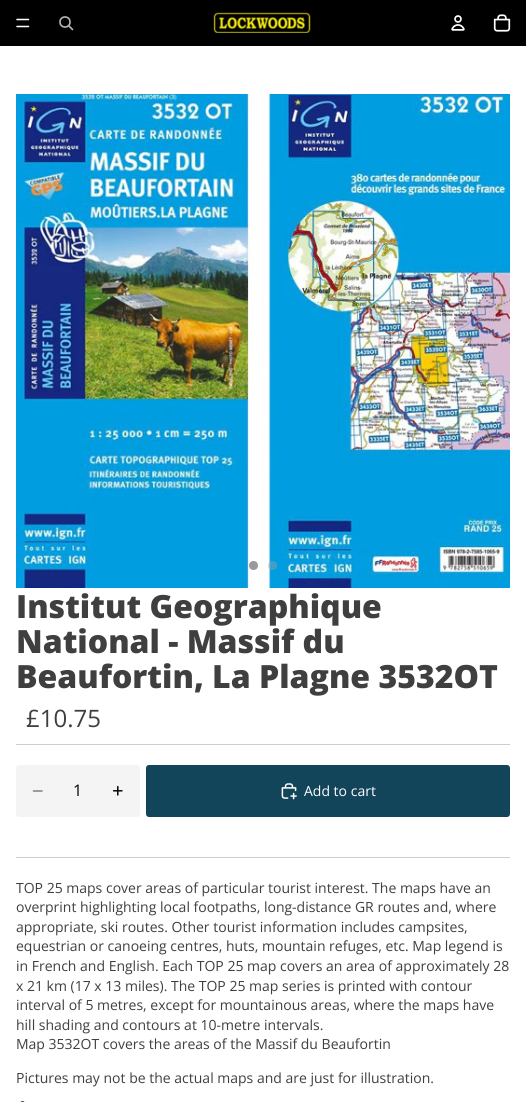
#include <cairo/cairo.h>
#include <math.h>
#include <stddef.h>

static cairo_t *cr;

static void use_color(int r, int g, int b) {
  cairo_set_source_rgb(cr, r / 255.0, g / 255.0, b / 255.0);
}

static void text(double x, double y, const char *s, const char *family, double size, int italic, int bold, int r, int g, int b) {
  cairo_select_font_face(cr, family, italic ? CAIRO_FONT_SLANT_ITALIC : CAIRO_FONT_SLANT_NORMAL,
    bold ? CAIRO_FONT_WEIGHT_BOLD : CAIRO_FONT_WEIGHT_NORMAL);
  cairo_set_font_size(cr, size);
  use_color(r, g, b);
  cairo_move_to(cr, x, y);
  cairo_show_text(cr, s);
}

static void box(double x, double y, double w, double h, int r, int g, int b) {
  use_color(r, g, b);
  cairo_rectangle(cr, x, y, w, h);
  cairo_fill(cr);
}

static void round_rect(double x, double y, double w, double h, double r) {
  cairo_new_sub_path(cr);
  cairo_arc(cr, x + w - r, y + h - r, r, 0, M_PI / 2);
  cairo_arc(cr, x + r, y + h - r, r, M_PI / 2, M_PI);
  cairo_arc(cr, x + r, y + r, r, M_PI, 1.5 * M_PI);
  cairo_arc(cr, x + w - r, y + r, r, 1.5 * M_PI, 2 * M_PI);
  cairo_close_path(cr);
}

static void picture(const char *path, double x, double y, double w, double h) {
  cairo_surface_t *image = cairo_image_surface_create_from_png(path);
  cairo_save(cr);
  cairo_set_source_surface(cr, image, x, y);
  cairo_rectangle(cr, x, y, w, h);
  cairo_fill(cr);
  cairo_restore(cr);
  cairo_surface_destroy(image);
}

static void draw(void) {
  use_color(255, 255, 255);
  cairo_paint(cr);
  box(0, 0, 526, 46, 0, 0, 0);
  cairo_new_path(cr);
  cairo_move_to(cr, 17, 19.5);
  cairo_line_to(cr, 28.5, 19.5);
  cairo_move_to(cr, 17, 26.5);
  cairo_line_to(cr, 28.5, 26.5);
  use_color(255, 255, 255);
  cairo_set_line_width(cr, 1.5);
  cairo_set_line_cap(cr, CAIRO_LINE_CAP_ROUND);
  cairo_stroke(cr);
  cairo_arc(cr, 65, 22, 5, 0, 2 * M_PI);
  use_color(179, 179, 179);
  cairo_set_line_width(cr, 1.7);
  cairo_set_line_cap(cr, CAIRO_LINE_CAP_BUTT);
  cairo_stroke(cr);
  cairo_new_path(cr);
  cairo_move_to(cr, 69, 26);
  cairo_line_to(cr, 72.5, 29.5);
  cairo_set_line_cap(cr, CAIRO_LINE_CAP_ROUND);
  cairo_set_line_join(cr, CAIRO_LINE_JOIN_ROUND);
  cairo_stroke(cr);
  picture("img_01.png", 213, 12, 98, 21);
  picture("img_02.png", 451, 15, 14, 16);
  picture("img_03.png", 493, 14, 18, 18);
  picture("img_04.png", 16, 94, 494, 494);
  use_color(153, 153, 153);
  cairo_new_path(cr);
  cairo_move_to(cr, 253.5, 561);
  cairo_curve_to(cr, 259.5, 561, 259.5, 570, 253.5, 570);
  cairo_curve_to(cr, 247.5, 570, 247.5, 561, 253.5, 561);
  cairo_close_path(cr);
  cairo_fill(cr);
  cairo_set_source_rgba(cr, 1, 1, 1, 0.3);
  cairo_arc(cr, 272.5, 565.5, 4.5, 0, 2 * M_PI);
  cairo_fill(cr);
  cairo_set_source_rgba(cr, 0, 0, 0, 0.15);
  cairo_new_path(cr);
  cairo_move_to(cr, 272.5, 561);
  cairo_curve_to(cr, 278.5, 561, 278.5, 570, 272.5, 570);
  cairo_curve_to(cr, 266.5, 570, 266.5, 561, 272.5, 561);
  cairo_close_path(cr);
  cairo_fill(cr);
  box(16, 744, 494, 1, 211, 206, 197);
  use_color(244, 244, 244);
  round_rect(16, 765, 124, 52, 3);
  cairo_fill(cr);
  cairo_new_path(cr);
  cairo_move_to(cr, 33.5, 791);
  cairo_line_to(cr, 42, 791);
  use_color(124, 124, 123);
  cairo_set_line_width(cr, 1.5);
  cairo_set_line_join(cr, CAIRO_LINE_JOIN_MITER);
  cairo_stroke(cr);
  picture("img_05.png", 112, 785, 11, 11);
  use_color(18, 69, 89);
  round_rect(146, 765, 364, 52, 3);
  cairo_fill(cr);
  picture("img_06.png", 281, 783, 16, 17);
  box(16, 857, 494, 1, 211, 206, 197);
  use_color(63, 63, 63);
  round_rect(20, 1101, 5, 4, 2.5);
  cairo_fill(cr);
  text(16, 618, "Institut Geographique", "Open Sans ExtraBold", 32, 0, 0, 63, 63, 63);
  text(16, 653, "National - Massif du", "Open Sans ExtraBold", 32, 0, 0, 63, 63, 63);
  text(16, 688, "Beaufortin, La Plagne 3532OT", "Open Sans ExtraBold", 32, 0, 0, 63, 63, 63);
  text(26, 727, "£10.75", "Open Sans", 24, 0, 0, 63, 63, 63);
  text(73, 796, "1", "Open Sans", 16, 0, 0, 3, 3, 2);
  text(304, 796, "Add to cart", "Open Sans", 14, 0, 0, 255, 255, 255);
  text(16, 893, "TOP 25 maps cover areas of particular tourist interest. The maps have an", "Open Sans", 14, 0, 0, 63, 63, 63);
  text(16, 912, "overprint highlighting local footpaths, long-distance GR routes and, where", "Open Sans", 14, 0, 0, 63, 63, 63);
  text(16, 932, "appropriate, ski routes. Other tourist information includes campsites,", "Open Sans", 14, 0, 0, 63, 63, 63);
  text(16, 951, "equestrian or canoeing centres, huts, mountain refuges, etc. Map legend is", "Open Sans", 14, 0, 0, 63, 63, 63);
  text(16, 971, "in French and English. Each TOP 25 map covers an area of approximately 28", "Open Sans", 14, 0, 0, 63, 63, 63);
  text(16, 991, "x 21 km (17 x 13 miles). The TOP 25 map series is printed with contour", "Open Sans", 14, 0, 0, 63, 63, 63);
  text(16, 1010, "interval of 5 metres, except for mountainous areas, where the maps have", "Open Sans", 14, 0, 0, 63, 63, 63);
  text(16, 1030, "hill shading and contours at 10-metre intervals.", "Open Sans", 14, 0, 0, 63, 63, 63);
  text(16, 1049, "Map 3532OT covers the areas of the Massif du Beaufortin", "Open Sans", 14, 0, 0, 63, 63, 63);
  text(16, 1083, "Pictures may not be the actual maps and are just for illustration.", "Open Sans", 14, 0, 0, 63, 63, 63);
}

int main(void) {
  cairo_surface_t *surface = cairo_image_surface_create(CAIRO_FORMAT_RGB24, 526, 1102);
  cr = cairo_create(surface);
  cairo_font_options_t *options = cairo_font_options_create();
  cairo_font_options_set_hint_metrics(options, CAIRO_HINT_METRICS_OFF);
  cairo_font_options_set_hint_style(options, CAIRO_HINT_STYLE_NONE);
  cairo_set_font_options(cr, options);
  cairo_set_miter_limit(cr, 4);
  draw();
  cairo_surface_write_to_png(surface, "out.png");
  cairo_font_options_destroy(options);
  cairo_destroy(cr);
  cairo_surface_destroy(surface);
  return 0;
}
